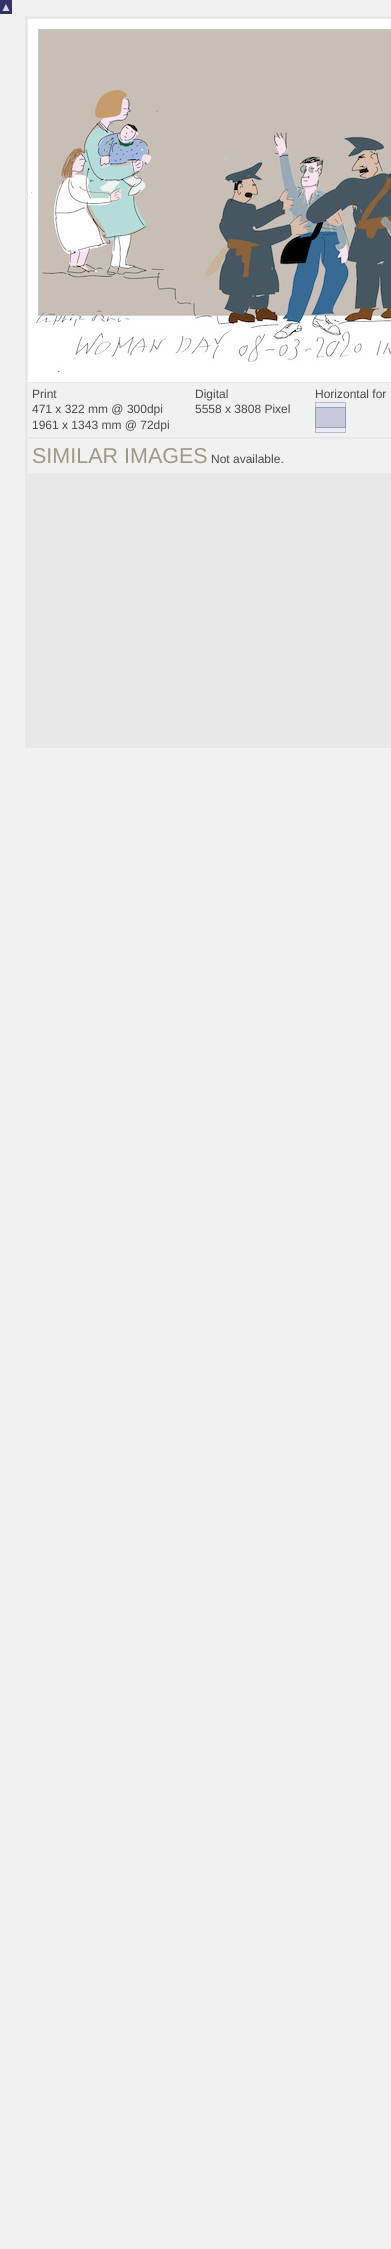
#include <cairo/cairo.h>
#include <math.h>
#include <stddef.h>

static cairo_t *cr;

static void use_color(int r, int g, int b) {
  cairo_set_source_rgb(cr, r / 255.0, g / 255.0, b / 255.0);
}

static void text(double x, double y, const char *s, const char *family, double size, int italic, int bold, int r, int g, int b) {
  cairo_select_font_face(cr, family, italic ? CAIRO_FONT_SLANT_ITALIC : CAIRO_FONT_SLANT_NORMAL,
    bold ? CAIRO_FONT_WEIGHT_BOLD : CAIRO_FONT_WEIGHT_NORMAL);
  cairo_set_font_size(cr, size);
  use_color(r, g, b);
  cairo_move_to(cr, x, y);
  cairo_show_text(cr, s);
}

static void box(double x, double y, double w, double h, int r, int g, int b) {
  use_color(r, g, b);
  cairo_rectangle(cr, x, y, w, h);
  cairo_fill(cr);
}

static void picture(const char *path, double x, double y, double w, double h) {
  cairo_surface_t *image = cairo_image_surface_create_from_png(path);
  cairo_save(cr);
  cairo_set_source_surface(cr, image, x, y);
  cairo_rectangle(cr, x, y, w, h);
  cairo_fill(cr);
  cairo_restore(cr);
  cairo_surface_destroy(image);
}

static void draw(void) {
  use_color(241, 241, 241);
  cairo_paint(cr);
  box(0, 0, 12, 14, 51, 51, 102);
  box(25, 16, 366, 732, 232, 232, 232);
  box(28, 19, 363, 363, 255, 255, 255);
  picture("img_01.png", 31, 29, 360, 343);
  box(28, 383, 363, 54, 241, 241, 241);
  picture("img_02.png", 315, 402, 31, 31);
  box(28, 439, 363, 34, 241, 241, 241);
  text(0, 11, "▲", "Liberation Sans", 12, 0, 0, 216, 217, 229);
  text(32, 398, "Print", "Liberation Sans", 12, 0, 0, 73, 73, 73);
  text(32, 413, "471 x 322 mm @ 300dpi", "Liberation Sans", 12, 0, 0, 73, 73, 73);
  text(32, 429, "1961 x 1343 mm @ 72dpi", "Liberation Sans", 12, 0, 0, 73, 73, 73);
  text(195, 398, "Digital", "Liberation Sans", 12, 0, 0, 73, 73, 73);
  text(195, 413, "5558 x 3808 Pixel", "Liberation Sans", 12, 0, 0, 73, 73, 73);
  text(315, 398, "Horizontal for", "Liberation Sans", 12, 0, 0, 73, 73, 73);
  text(32, 463, "SIMILAR IMAGES", "Liberation Sans", 21.5, 0, 0, 156, 153, 132);
  text(211, 463, "Not available.", "Liberation Sans", 12, 0, 0, 73, 73, 73);
}

int main(void) {
  cairo_surface_t *surface = cairo_image_surface_create(CAIRO_FORMAT_RGB24, 391, 2249);
  cr = cairo_create(surface);
  cairo_font_options_t *options = cairo_font_options_create();
  cairo_font_options_set_hint_metrics(options, CAIRO_HINT_METRICS_OFF);
  cairo_font_options_set_hint_style(options, CAIRO_HINT_STYLE_NONE);
  cairo_set_font_options(cr, options);
  cairo_set_miter_limit(cr, 4);
  draw();
  cairo_surface_write_to_png(surface, "out.png");
  cairo_font_options_destroy(options);
  cairo_destroy(cr);
  cairo_surface_destroy(surface);
  return 0;
}
